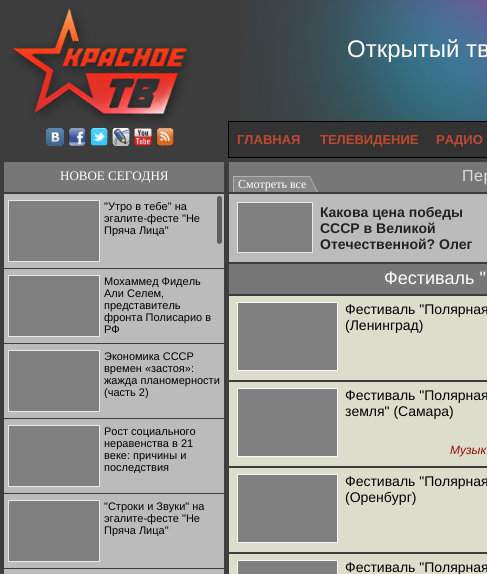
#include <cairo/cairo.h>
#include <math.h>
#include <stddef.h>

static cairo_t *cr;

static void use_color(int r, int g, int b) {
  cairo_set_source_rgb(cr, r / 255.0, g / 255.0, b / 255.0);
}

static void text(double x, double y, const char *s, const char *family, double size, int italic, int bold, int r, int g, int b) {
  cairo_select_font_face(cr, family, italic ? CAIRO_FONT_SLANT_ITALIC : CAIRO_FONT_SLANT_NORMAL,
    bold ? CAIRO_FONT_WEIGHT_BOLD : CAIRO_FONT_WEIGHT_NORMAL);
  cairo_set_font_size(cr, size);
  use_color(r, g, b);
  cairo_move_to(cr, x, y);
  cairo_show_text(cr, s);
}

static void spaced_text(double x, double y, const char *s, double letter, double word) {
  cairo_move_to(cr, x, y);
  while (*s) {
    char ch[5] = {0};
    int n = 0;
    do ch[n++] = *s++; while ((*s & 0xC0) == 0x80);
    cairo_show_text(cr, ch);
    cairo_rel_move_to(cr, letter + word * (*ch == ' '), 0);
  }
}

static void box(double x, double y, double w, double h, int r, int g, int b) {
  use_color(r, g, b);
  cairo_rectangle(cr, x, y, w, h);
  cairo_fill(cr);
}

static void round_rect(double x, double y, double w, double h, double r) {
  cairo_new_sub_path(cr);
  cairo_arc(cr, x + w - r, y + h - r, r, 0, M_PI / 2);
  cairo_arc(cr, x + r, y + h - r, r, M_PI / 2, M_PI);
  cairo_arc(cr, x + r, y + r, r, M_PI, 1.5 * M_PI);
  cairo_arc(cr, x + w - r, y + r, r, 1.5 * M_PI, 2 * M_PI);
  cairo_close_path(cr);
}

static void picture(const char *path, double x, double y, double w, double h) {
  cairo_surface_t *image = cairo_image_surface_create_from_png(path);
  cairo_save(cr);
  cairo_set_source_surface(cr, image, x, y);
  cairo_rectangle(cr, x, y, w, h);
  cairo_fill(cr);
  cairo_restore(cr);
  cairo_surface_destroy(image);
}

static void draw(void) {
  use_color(61, 61, 61);
  cairo_paint(cr);
  picture("img_01.png", 12, 6, 179, 118);
  picture("img_02.png", 46, 128, 18, 18);
  picture("img_03.png", 68, 128, 18, 18);
  picture("img_04.png", 90, 128, 18, 18);
  picture("img_05.png", 112, 128, 18, 18);
  picture("img_06.png", 134, 128, 18, 18);
  picture("img_07.png", 156, 128, 18, 18);
  picture("img_08.png", 244, 0, 243, 121);
  cairo_rectangle(cr, 228.5, 121.5, 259, 36);
  use_color(0, 0, 0);
  cairo_set_line_width(cr, 1);
  cairo_stroke(cr);
  box(229, 122, 258, 35, 51, 51, 51);
  box(4, 162, 220, 30, 119, 119, 119);
  box(4, 194, 220, 380, 187, 187, 187);
  use_color(128, 128, 128);
  cairo_rectangle(cr, 8.5, 200.5, 91, 61);
  cairo_fill_preserve(cr);
  use_color(232, 232, 236);
  cairo_stroke(cr);
  box(4, 268, 220, 1, 61, 61, 61);
  use_color(128, 128, 128);
  cairo_rectangle(cr, 8.5, 275.5, 91, 61);
  cairo_fill_preserve(cr);
  use_color(232, 232, 236);
  cairo_stroke(cr);
  box(4, 343, 220, 1, 61, 61, 61);
  use_color(128, 128, 128);
  cairo_rectangle(cr, 8.5, 350.5, 91, 61);
  cairo_fill_preserve(cr);
  use_color(232, 232, 236);
  cairo_stroke(cr);
  box(4, 418, 220, 1, 61, 61, 61);
  use_color(128, 128, 128);
  cairo_rectangle(cr, 8.5, 425.5, 91, 61);
  cairo_fill_preserve(cr);
  use_color(232, 232, 236);
  cairo_stroke(cr);
  box(4, 493, 220, 1, 61, 61, 61);
  use_color(128, 128, 128);
  cairo_rectangle(cr, 8.5, 500.5, 91, 61);
  cairo_fill_preserve(cr);
  use_color(232, 232, 236);
  cairo_stroke(cr);
  box(4, 568, 220, 1, 61, 61, 61);
  box(229, 162, 258, 30, 119, 119, 119);
  box(234, 177, 76, 15, 136, 136, 136);
  box(233, 176, 77, 1, 176, 176, 176);
  cairo_new_path(cr);
  cairo_move_to(cr, 318, 192);
  cairo_line_to(cr, 310, 192);
  cairo_line_to(cr, 310, 176);
  cairo_close_path(cr);
  cairo_fill(cr);
  use_color(136, 136, 136);
  cairo_new_path(cr);
  cairo_move_to(cr, 317, 192);
  cairo_line_to(cr, 309, 192);
  cairo_line_to(cr, 309, 176);
  cairo_close_path(cr);
  cairo_fill(cr);
  box(233, 176, 1, 16, 176, 176, 176);
  box(229, 194, 258, 68, 187, 187, 187);
  box(238, 203, 74, 49, 128, 128, 128);
  box(237, 202, 76, 1, 232, 232, 236);
  box(312, 202, 1, 51, 232, 232, 236);
  box(237, 252, 76, 1, 232, 232, 236);
  box(237, 202, 1, 51, 232, 232, 236);
  box(229, 264, 258, 30, 119, 119, 119);
  box(229, 296, 258, 84, 221, 221, 204);
  box(238, 303, 99, 67, 128, 128, 128);
  box(237, 302, 101, 1, 248, 248, 252);
  box(337, 302, 1, 69, 248, 248, 252);
  box(237, 370, 101, 1, 248, 248, 252);
  box(237, 302, 1, 69, 248, 248, 252);
  box(229, 382, 258, 84, 221, 221, 204);
  box(238, 389, 99, 67, 128, 128, 128);
  box(237, 388, 101, 1, 248, 248, 252);
  box(337, 388, 1, 69, 248, 248, 252);
  box(237, 456, 101, 1, 248, 248, 252);
  box(237, 388, 1, 69, 248, 248, 252);
  box(229, 468, 258, 84, 221, 221, 204);
  box(238, 475, 99, 67, 128, 128, 128);
  box(237, 474, 101, 1, 248, 248, 252);
  box(337, 474, 1, 69, 248, 248, 252);
  box(237, 542, 101, 1, 248, 248, 252);
  box(237, 474, 1, 69, 248, 248, 252);
  box(229, 554, 258, 20, 221, 221, 204);
  box(238, 561, 99, 13, 128, 128, 128);
  box(237, 560, 101, 1, 248, 248, 252);
  box(337, 560, 1, 14, 248, 248, 252);
  box(237, 560, 1, 14, 248, 248, 252);
  use_color(95, 95, 95);
  round_rect(217, 196, 5, 48, 2.5);
  cairo_fill(cr);
  text(347, 57, "Открытый тв", "Liberation Sans", 24, 0, 0, 255, 255, 255);
  text(237, 144, "ГЛАВНАЯ", "Liberation Sans", 13, 0, 1, 191, 72, 51);
  text(320, 144, "ТЕЛЕВИДЕНИЕ", "Liberation Sans", 13, 0, 1, 191, 72, 51);
  text(436, 144, "РАДИО", "Liberation Sans", 13, 0, 1, 191, 72, 51);
  text(60, 180, "НОВОЕ СЕГОДНЯ", "Liberation Serif", 13, 0, 0, 255, 255, 255);
  text(104, 210, "\"Утро в тебе\" на", "Liberation Sans", 11, 0, 0, 0, 0, 0);
  text(104, 222, "эгалите-фесте \"Не", "Liberation Sans", 11, 0, 0, 0, 0, 0);
  cairo_save(cr);
  cairo_rectangle(cr, 104, 200, 116, 36);
  cairo_clip(cr);
  text(104, 234, "Пряча Лица\"", "Liberation Sans", 11, 0, 0, 0, 0, 0);
  cairo_restore(cr);
  text(104, 285, "Мохаммед Фидель", "Liberation Sans", 11, 0, 0, 0, 0, 0);
  text(104, 297, "Али Селем,", "Liberation Sans", 11, 0, 0, 0, 0, 0);
  text(104, 309, "представитель", "Liberation Sans", 11, 0, 0, 0, 0, 0);
  text(104, 321, "фронта Полисарио в", "Liberation Sans", 11, 0, 0, 0, 0, 0);
  text(104, 333, "РФ", "Liberation Sans", 11, 0, 0, 0, 0, 0);
  text(104, 360, "Экономика СССР", "Liberation Sans", 11, 0, 0, 0, 0, 0);
  text(104, 372, "времен «застоя»:", "Liberation Sans", 11, 0, 0, 0, 0, 0);
  text(104, 384, "жажда планомерности", "Liberation Sans", 11, 0, 0, 0, 0, 0);
  cairo_save(cr);
  cairo_rectangle(cr, 104, 350, 116, 48);
  cairo_clip(cr);
  text(104, 396, "(часть 2)", "Liberation Sans", 11, 0, 0, 0, 0, 0);
  cairo_restore(cr);
  text(104, 435, "Рост социального", "Liberation Sans", 11, 0, 0, 0, 0, 0);
  text(104, 447, "неравенства в 21", "Liberation Sans", 11, 0, 0, 0, 0, 0);
  text(104, 459, "веке: причины и", "Liberation Sans", 11, 0, 0, 0, 0, 0);
  cairo_save(cr);
  cairo_rectangle(cr, 104, 425, 116, 48);
  cairo_clip(cr);
  text(104, 471, "последствия", "Liberation Sans", 11, 0, 0, 0, 0, 0);
  cairo_restore(cr);
  text(104, 510, "\"Строки и Звуки\" на", "Liberation Sans", 11, 0, 0, 0, 0, 0);
  text(104, 522, "эгалите-фесте \"Не", "Liberation Sans", 11, 0, 0, 0, 0, 0);
  cairo_save(cr);
  cairo_rectangle(cr, 104, 500, 116, 36);
  cairo_clip(cr);
  text(104, 534, "Пряча Лица\"", "Liberation Sans", 11, 0, 0, 0, 0, 0);
  cairo_restore(cr);
  text(238, 188, "Смотреть все", "Liberation Serif", 12, 0, 0, 255, 255, 255);
  cairo_select_font_face(cr, "Liberation Sans", CAIRO_FONT_SLANT_NORMAL, CAIRO_FONT_WEIGHT_NORMAL);
  cairo_set_font_size(cr, 16);
  use_color(221, 221, 221);
  spaced_text(462, 181, "Пер", 0.5, 0);
  text(320, 217, "Какова цена победы", "Liberation Sans", 14, 0, 1, 34, 34, 34);
  text(320, 233, "СССР в Великой", "Liberation Sans", 14, 0, 1, 34, 34, 34);
  text(320, 249, "Отечественной? Олег", "Liberation Sans", 14, 0, 1, 34, 34, 34);
  text(384, 284, "Фестиваль \"", "Liberation Sans", 18, 0, 0, 255, 255, 255);
  text(345, 314, "Фестиваль \"Полярная", "Liberation Sans", 14, 0, 0, 0, 0, 0);
  text(345, 330, "(Ленинград)", "Liberation Sans", 14, 0, 0, 0, 0, 0);
  text(345, 400, "Фестиваль \"Полярная", "Liberation Sans", 14, 0, 0, 0, 0, 0);
  text(345, 416, "земля\" (Самара)", "Liberation Sans", 14, 0, 0, 0, 0, 0);
  text(450, 454, "Музык", "Liberation Sans", 12, 1, 0, 142, 14, 5);
  text(345, 486, "Фестиваль \"Полярная", "Liberation Sans", 14, 0, 0, 0, 0, 0);
  text(345, 502, "(Оренбург)", "Liberation Sans", 14, 0, 0, 0, 0, 0);
  text(345, 572, "Фестиваль \"Полярная", "Liberation Sans", 14, 0, 0, 0, 0, 0);
}

int main(void) {
  cairo_surface_t *surface = cairo_image_surface_create(CAIRO_FORMAT_RGB24, 487, 574);
  cr = cairo_create(surface);
  cairo_font_options_t *options = cairo_font_options_create();
  cairo_font_options_set_hint_metrics(options, CAIRO_HINT_METRICS_OFF);
  cairo_font_options_set_hint_style(options, CAIRO_HINT_STYLE_NONE);
  cairo_set_font_options(cr, options);
  cairo_set_miter_limit(cr, 4);
  draw();
  cairo_surface_write_to_png(surface, "out.png");
  cairo_font_options_destroy(options);
  cairo_destroy(cr);
  cairo_surface_destroy(surface);
  return 0;
}
